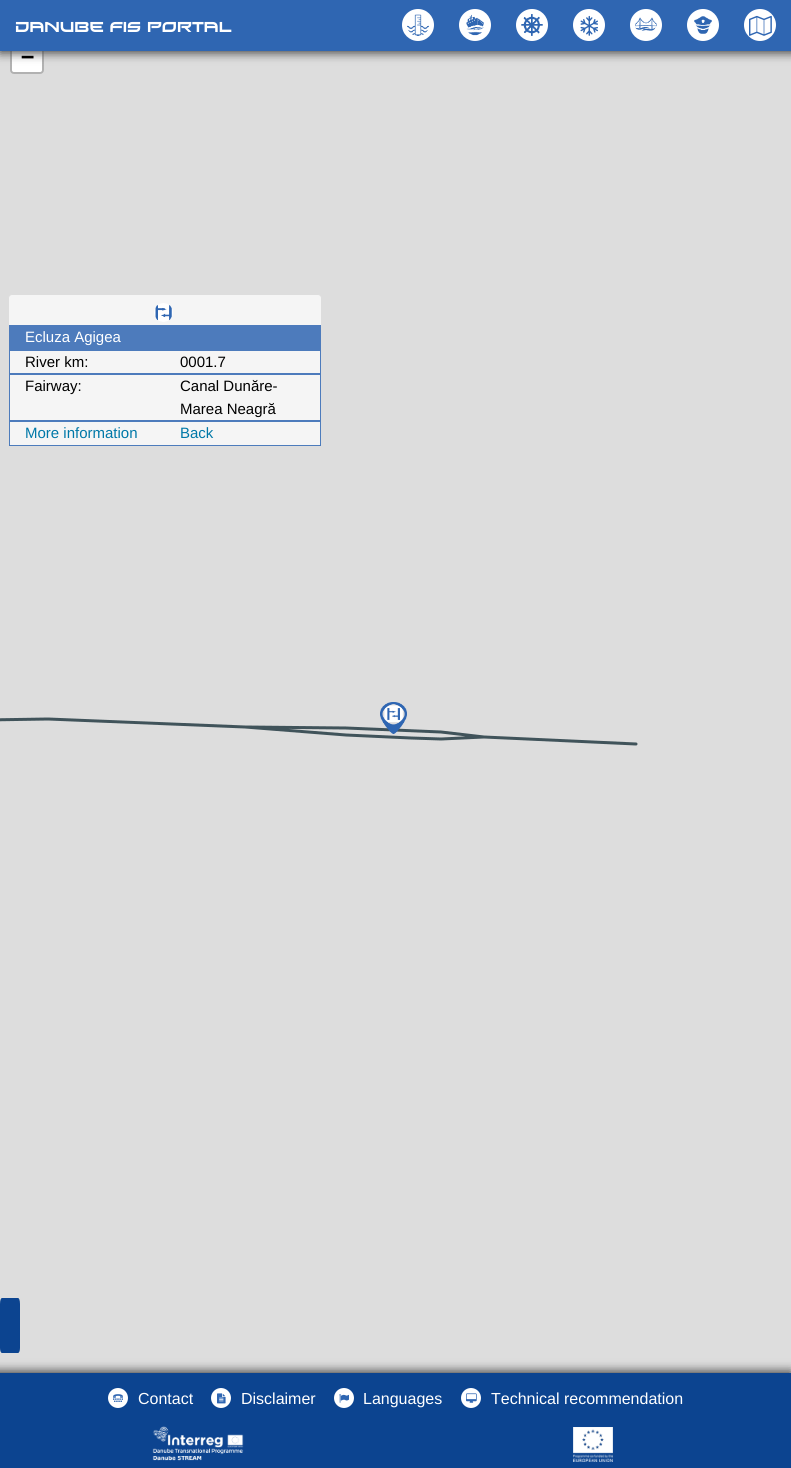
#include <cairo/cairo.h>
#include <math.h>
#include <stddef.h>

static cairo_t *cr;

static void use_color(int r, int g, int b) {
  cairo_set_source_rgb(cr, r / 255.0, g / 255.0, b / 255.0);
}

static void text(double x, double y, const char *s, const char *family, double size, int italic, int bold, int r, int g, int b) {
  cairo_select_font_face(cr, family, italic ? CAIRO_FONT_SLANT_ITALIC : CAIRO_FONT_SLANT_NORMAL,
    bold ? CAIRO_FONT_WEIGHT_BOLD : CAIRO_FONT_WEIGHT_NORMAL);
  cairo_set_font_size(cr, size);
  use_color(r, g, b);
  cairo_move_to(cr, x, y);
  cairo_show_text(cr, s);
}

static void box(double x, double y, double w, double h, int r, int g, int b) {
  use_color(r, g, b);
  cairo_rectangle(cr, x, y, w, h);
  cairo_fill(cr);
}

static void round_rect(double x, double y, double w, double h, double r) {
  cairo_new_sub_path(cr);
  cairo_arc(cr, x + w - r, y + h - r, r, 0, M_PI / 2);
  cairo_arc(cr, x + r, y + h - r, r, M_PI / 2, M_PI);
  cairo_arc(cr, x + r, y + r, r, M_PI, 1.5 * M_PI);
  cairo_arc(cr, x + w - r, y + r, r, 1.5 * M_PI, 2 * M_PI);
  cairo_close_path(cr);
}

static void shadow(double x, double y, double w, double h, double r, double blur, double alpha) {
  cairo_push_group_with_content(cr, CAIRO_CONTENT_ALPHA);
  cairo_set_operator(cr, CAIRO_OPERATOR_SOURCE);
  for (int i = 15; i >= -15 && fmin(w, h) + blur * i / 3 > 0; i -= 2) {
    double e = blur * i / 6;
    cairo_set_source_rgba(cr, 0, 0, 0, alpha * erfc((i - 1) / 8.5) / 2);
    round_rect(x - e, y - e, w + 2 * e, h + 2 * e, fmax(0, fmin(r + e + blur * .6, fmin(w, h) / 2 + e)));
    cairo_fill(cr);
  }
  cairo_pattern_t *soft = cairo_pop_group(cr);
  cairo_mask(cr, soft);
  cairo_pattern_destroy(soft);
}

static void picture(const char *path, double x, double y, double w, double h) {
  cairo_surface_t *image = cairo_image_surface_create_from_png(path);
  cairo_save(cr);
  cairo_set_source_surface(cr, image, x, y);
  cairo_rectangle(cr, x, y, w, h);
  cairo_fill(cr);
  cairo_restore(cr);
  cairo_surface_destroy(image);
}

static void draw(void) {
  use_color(221, 221, 221);
  cairo_paint(cr);
  round_rect(11, 11, 32, 62, 3);
  use_color(177, 177, 177);
  cairo_stroke(cr);
  use_color(255, 255, 255);
  cairo_new_path(cr);
  cairo_move_to(cr, 12, 42);
  cairo_line_to(cr, 42, 42);
  cairo_line_to(cr, 42, 70);
  cairo_curve_to(cr, 42, 71, 41, 72, 40, 72);
  cairo_line_to(cr, 14, 72);
  cairo_curve_to(cr, 13, 72, 12, 71, 12, 70);
  cairo_close_path(cr);
  cairo_fill(cr);
  use_color(68, 68, 68);
  shadow(0, -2, 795, 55, 0, 5, 1);
  box(0, 0, 791, 51, 47, 102, 178);
  use_color(255, 255, 255);
  cairo_arc(cr, 418, 25, 16, 0, 2 * M_PI);
  cairo_fill(cr);
  picture("img_01.png", 407, 14, 22, 22);
  cairo_arc(cr, 475, 25, 16, 0, 2 * M_PI);
  cairo_fill(cr);
  picture("img_02.png", 466, 14, 18, 22);
  cairo_arc(cr, 532, 25, 16, 0, 2 * M_PI);
  cairo_fill(cr);
  picture("img_03.png", 521, 14, 22, 22);
  cairo_arc(cr, 589, 25, 16, 0, 2 * M_PI);
  cairo_fill(cr);
  picture("img_04.png", 580, 15, 18, 21);
  cairo_arc(cr, 646, 25, 16, 0, 2 * M_PI);
  cairo_fill(cr);
  picture("img_05.png", 635, 17, 22, 14);
  cairo_arc(cr, 703, 25, 16, 0, 2 * M_PI);
  cairo_fill(cr);
  picture("img_06.png", 694, 16, 18, 18);
  cairo_arc(cr, 760, 25, 16, 0, 2 * M_PI);
  cairo_fill(cr);
  picture("img_07.png", 749, 15, 23, 21);
  cairo_set_source_rgba(cr, 1, 1, 1, 0.7);
  round_rect(8.5, 294.5, 313, 152, 3.5);
  cairo_fill_preserve(cr);
  use_color(221, 221, 221);
  cairo_set_line_width(cr, 1);
  cairo_stroke(cr);
  picture("img_08.png", 154, 303, 19, 19);
  cairo_rectangle(cr, 9.5, 325.5, 311, 24);
  use_color(77, 123, 188);
  cairo_stroke(cr);
  box(10, 326, 310, 23, 77, 123, 188);
  cairo_rectangle(cr, 9.5, 350.5, 311, 23);
  cairo_stroke(cr);
  cairo_rectangle(cr, 9.5, 374.5, 311, 46);
  cairo_stroke(cr);
  cairo_rectangle(cr, 9.5, 421.5, 311, 24);
  cairo_set_source_rgba(cr, 0.184, 0.4, 0.698, 0.85);
  cairo_stroke(cr);
  cairo_new_path(cr);
  cairo_move_to(cr, 484, 737);
  cairo_line_to(cr, 636, 744);
  cairo_move_to(cr, 245, 727);
  cairo_line_to(cr, 346, 735);
  cairo_line_to(cr, 411, 738);
  cairo_line_to(cr, 441, 739);
  cairo_line_to(cr, 484, 737);
  cairo_move_to(cr, 245, 727);
  cairo_line_to(cr, 346, 728);
  cairo_line_to(cr, 441, 732);
  cairo_line_to(cr, 484, 737);
  cairo_move_to(cr, -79, 721);
  cairo_line_to(cr, 48, 719);
  cairo_line_to(cr, 245, 727);
  use_color(64, 83, 90);
  cairo_set_line_width(cr, 3);
  cairo_set_line_cap(cr, CAIRO_LINE_CAP_ROUND);
  cairo_set_line_join(cr, CAIRO_LINE_JOIN_ROUND);
  cairo_stroke(cr);
  picture("img_09.png", 380, 702, 27, 32);
  use_color(12, 68, 144);
  cairo_new_path(cr);
  cairo_move_to(cr, 2, 1298);
  cairo_line_to(cr, 18, 1298);
  cairo_curve_to(cr, 19, 1298, 20, 1300, 20, 1304);
  cairo_line_to(cr, 20, 1348);
  cairo_curve_to(cr, 20, 1351, 19, 1353, 18, 1353);
  cairo_line_to(cr, 2, 1353);
  cairo_curve_to(cr, 1, 1353, 0, 1351, 0, 1348);
  cairo_line_to(cr, 0, 1304);
  cairo_curve_to(cr, 0, 1300, 1, 1298, 2, 1298);
  cairo_close_path(cr);
  cairo_fill(cr);
  use_color(68, 68, 68);
  shadow(-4, 1371, 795, 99, 0, 5, 1);
  box(0, 1373, 791, 95, 12, 68, 144);
  use_color(255, 255, 255);
  cairo_arc(cr, 118, 1398, 10, 0, 2 * M_PI);
  cairo_fill(cr);
  picture("img_10.png", 113, 1394, 10, 8);
  cairo_arc(cr, 221, 1398, 10, 0, 2 * M_PI);
  cairo_fill(cr);
  picture("img_11.png", 217, 1393, 9, 11);
  cairo_arc(cr, 344, 1398, 10, 0, 2 * M_PI);
  cairo_fill(cr);
  picture("img_12.png", 339, 1394, 10, 9);
  cairo_arc(cr, 471, 1398, 10, 0, 2 * M_PI);
  cairo_fill(cr);
  picture("img_13.png", 466, 1393, 11, 10);
  picture("img_14.png", 152, 1426, 92, 35);
  picture("img_15.png", 573, 1427, 40, 35);
  text(15, 32, "Danube FIS Portal", "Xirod", 13, 0, 0, 255, 255, 255);
  text(21, 64, "−", "DejaVu Sans Mono", 22, 0, 1, 0, 0, 0);
  text(25, 342, "Ecluza Agigea", "Liberation Sans", 15, 0, 0, 255, 255, 255);
  text(25, 367, "River km:", "Liberation Sans", 15, 0, 0, 0, 0, 0);
  text(180, 367, "0001.7", "Liberation Sans", 15, 0, 0, 0, 0, 0);
  text(25, 391, "Fairway:", "Liberation Sans", 15, 0, 0, 0, 0, 0);
  text(180, 391, "Canal Dunăre-", "Liberation Sans", 15, 0, 0, 0, 0, 0);
  text(180, 414, "Marea Neagră", "Liberation Sans", 15, 0, 0, 0, 0, 0);
  text(25, 438, "More information", "Liberation Sans", 15, 0, 0, 0, 120, 168);
  text(180, 438, "Back", "Liberation Sans", 15, 0, 0, 0, 120, 168);
  text(138, 1404, "Contact", "Liberation Sans", 16, 0, 0, 255, 255, 255);
  text(241, 1404, "Disclaimer", "Liberation Sans", 16, 0, 0, 255, 255, 255);
  text(363, 1404, "Languages", "Liberation Sans", 16, 0, 0, 255, 255, 255);
  text(491, 1404, "Technical recommendation", "Liberation Sans", 16, 0, 0, 255, 255, 255);
}

int main(void) {
  cairo_surface_t *surface = cairo_image_surface_create(CAIRO_FORMAT_RGB24, 791, 1468);
  cr = cairo_create(surface);
  cairo_font_options_t *options = cairo_font_options_create();
  cairo_font_options_set_hint_metrics(options, CAIRO_HINT_METRICS_OFF);
  cairo_font_options_set_hint_style(options, CAIRO_HINT_STYLE_NONE);
  cairo_set_font_options(cr, options);
  cairo_set_miter_limit(cr, 4);
  draw();
  cairo_surface_write_to_png(surface, "out.png");
  cairo_font_options_destroy(options);
  cairo_destroy(cr);
  cairo_surface_destroy(surface);
  return 0;
}
